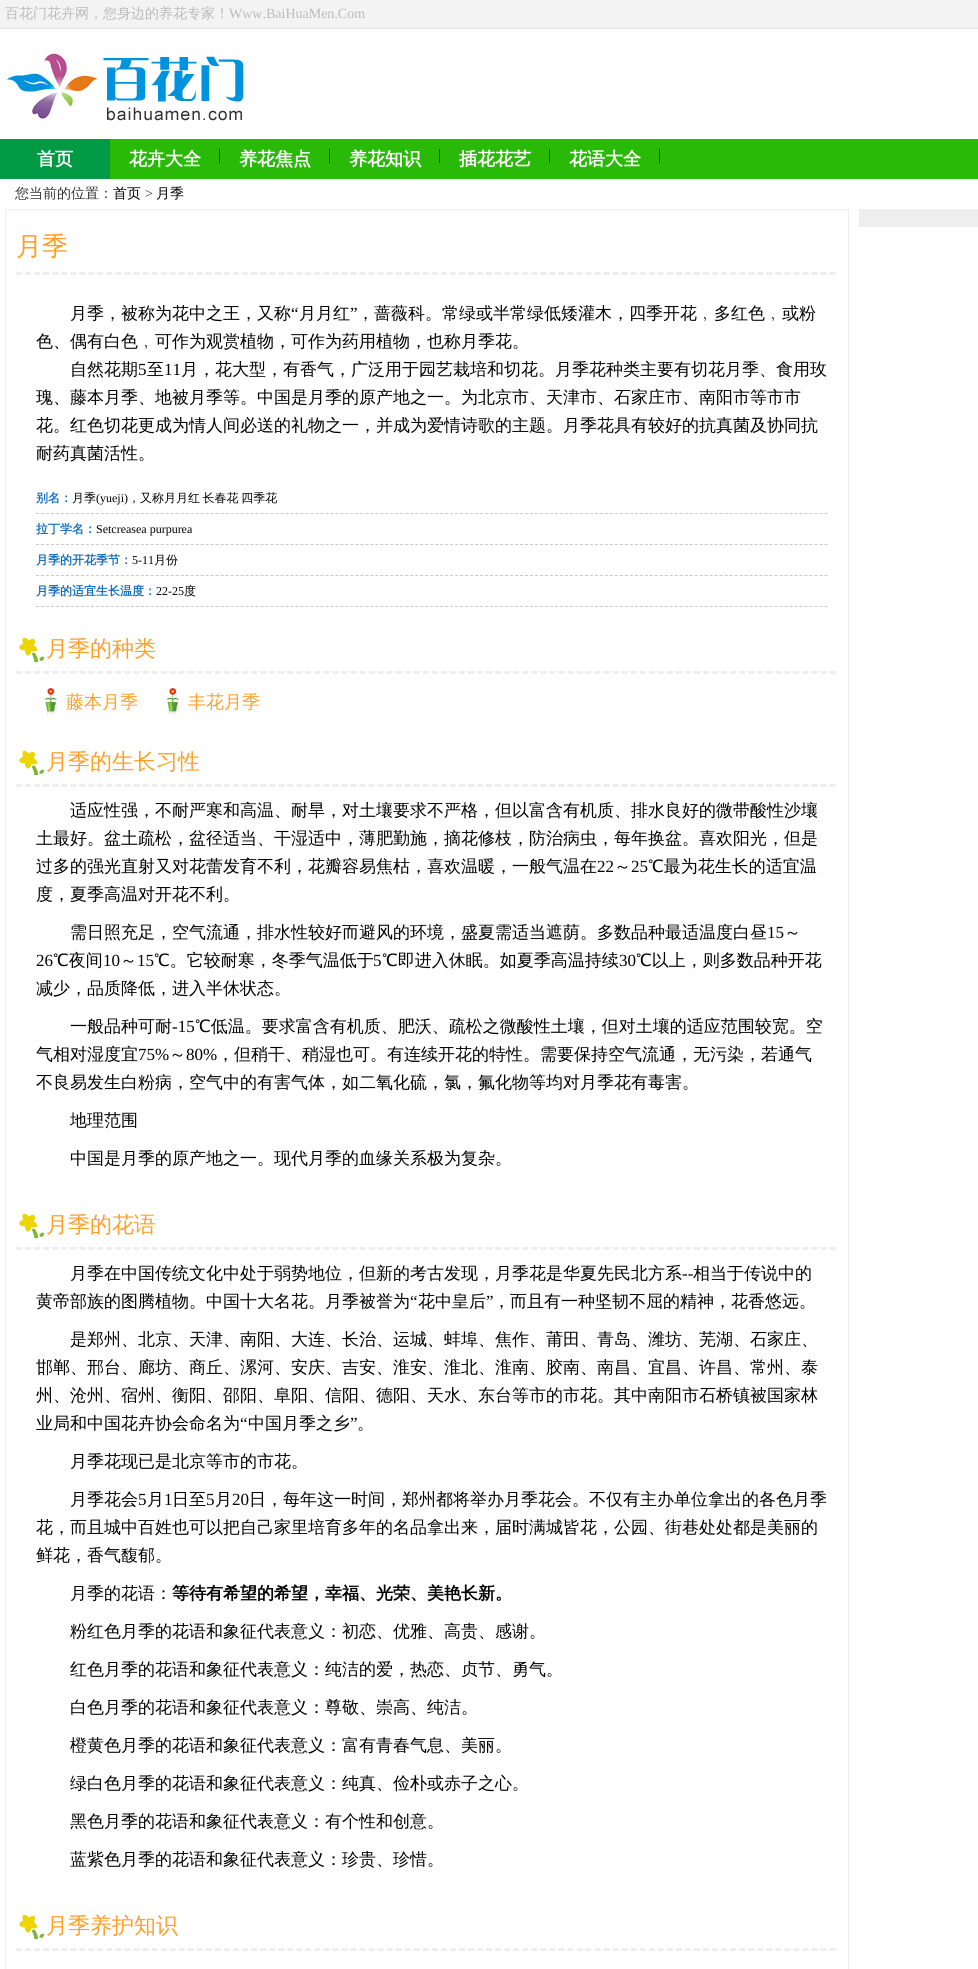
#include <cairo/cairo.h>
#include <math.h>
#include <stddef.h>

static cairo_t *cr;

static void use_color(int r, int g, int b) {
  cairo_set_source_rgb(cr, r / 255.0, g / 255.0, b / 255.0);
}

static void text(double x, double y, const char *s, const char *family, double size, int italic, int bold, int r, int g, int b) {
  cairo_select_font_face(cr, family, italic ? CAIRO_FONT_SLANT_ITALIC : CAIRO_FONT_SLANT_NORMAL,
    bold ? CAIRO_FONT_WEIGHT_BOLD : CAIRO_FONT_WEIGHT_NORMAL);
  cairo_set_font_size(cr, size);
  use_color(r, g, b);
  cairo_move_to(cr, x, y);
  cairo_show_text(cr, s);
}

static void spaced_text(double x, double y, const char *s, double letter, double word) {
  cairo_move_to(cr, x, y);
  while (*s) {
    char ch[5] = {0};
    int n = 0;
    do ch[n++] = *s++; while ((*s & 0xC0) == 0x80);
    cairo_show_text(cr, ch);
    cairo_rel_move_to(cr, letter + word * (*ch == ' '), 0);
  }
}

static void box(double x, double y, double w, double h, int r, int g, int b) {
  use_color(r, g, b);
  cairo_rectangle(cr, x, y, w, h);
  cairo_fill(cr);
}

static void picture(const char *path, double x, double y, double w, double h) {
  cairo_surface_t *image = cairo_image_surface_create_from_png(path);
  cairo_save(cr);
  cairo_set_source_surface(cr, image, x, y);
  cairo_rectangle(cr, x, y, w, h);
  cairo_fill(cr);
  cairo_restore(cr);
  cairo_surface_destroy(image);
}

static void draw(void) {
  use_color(255, 255, 255);
  cairo_paint(cr);
  box(0, 0, 978, 28, 243, 243, 243);
  box(0, 28, 978, 1, 227, 227, 227);
  picture("img_01.png", 6, 53, 238, 68);
  box(110, 139, 868, 40, 40, 186, 7);
  box(0, 139, 110, 40, 0, 153, 68);
  box(219, 149, 1, 14, 52, 52, 52);
  box(329, 149, 1, 14, 52, 52, 52);
  box(439, 149, 1, 14, 52, 52, 52);
  box(549, 149, 1, 14, 52, 52, 52);
  box(659, 149, 1, 14, 52, 52, 52);
  box(859, 209, 119, 18, 238, 238, 238);
  cairo_rectangle(cr, 5.5, 209.5, 843, 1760);
  cairo_set_line_width(cr, 1);
  cairo_stroke(cr);
  cairo_new_path(cr);
  cairo_move_to(cr, 16, 273.5);
  cairo_line_to(cr, 836, 273.5);
  cairo_set_line_width(cr, 3);
  cairo_set_dash(cr, (double[]){6, 3.04}, 2, 0);
  cairo_stroke(cr);
  cairo_new_path(cr);
  cairo_move_to(cr, 36, 513.5);
  cairo_line_to(cr, 828, 513.5);
  use_color(201, 201, 201);
  cairo_set_line_width(cr, 1);
  cairo_set_dash(cr, (double[]){3, 1.99}, 2, 0);
  cairo_stroke(cr);
  cairo_new_path(cr);
  cairo_move_to(cr, 36, 544.5);
  cairo_line_to(cr, 828, 544.5);
  cairo_stroke(cr);
  cairo_new_path(cr);
  cairo_move_to(cr, 36, 575.5);
  cairo_line_to(cr, 828, 575.5);
  cairo_stroke(cr);
  cairo_new_path(cr);
  cairo_move_to(cr, 36, 606.5);
  cairo_line_to(cr, 828, 606.5);
  cairo_stroke(cr);
  picture("img_02.png", 19, 637, 26, 25);
  cairo_new_path(cr);
  cairo_move_to(cr, 16, 672.5);
  cairo_line_to(cr, 836, 672.5);
  use_color(238, 238, 238);
  cairo_set_line_width(cr, 3);
  cairo_set_dash(cr, (double[]){6, 3.04}, 2, 0);
  cairo_stroke(cr);
  picture("img_03.png", 44, 687, 13, 28);
  picture("img_03.png", 166, 687, 13, 28);
  picture("img_02.png", 19, 750, 26, 25);
  cairo_new_path(cr);
  cairo_move_to(cr, 16, 785.5);
  cairo_line_to(cr, 836, 785.5);
  cairo_stroke(cr);
  picture("img_02.png", 19, 1213, 26, 25);
  cairo_new_path(cr);
  cairo_move_to(cr, 16, 1248.5);
  cairo_line_to(cr, 836, 1248.5);
  cairo_stroke(cr);
  picture("img_02.png", 19, 1914, 26, 25);
  cairo_new_path(cr);
  cairo_move_to(cr, 16, 1949.5);
  cairo_line_to(cr, 836, 1949.5);
  cairo_stroke(cr);
  text(5, 18, "百花门花卉网，您身边的养花专家！", "WenQuanYi Zen Hei Medium", 14, 0, 0, 187, 187, 187);
  text(229, 18, "Www.BaiHuaMen.Com", "Liberation Serif", 14, 0, 0, 187, 187, 187);
  text(37, 165, "首页", "WenQuanYi Zen Hei", 18, 0, 1, 255, 255, 255);
  text(129, 165, "花卉大全", "WenQuanYi Zen Hei", 18, 0, 1, 255, 255, 255);
  text(239, 165, "养花焦点", "WenQuanYi Zen Hei", 18, 0, 1, 255, 255, 255);
  text(349, 165, "养花知识", "WenQuanYi Zen Hei", 18, 0, 1, 255, 255, 255);
  text(459, 165, "插花花艺", "WenQuanYi Zen Hei", 18, 0, 1, 255, 255, 255);
  text(569, 165, "花语大全", "WenQuanYi Zen Hei", 18, 0, 1, 255, 255, 255);
  text(15, 198, "您当前的位置：", "WenQuanYi Zen Hei Medium", 14, 0, 0, 51, 51, 51);
  text(113, 198, "首页", "WenQuanYi Zen Hei Medium", 14, 0, 0, 0, 0, 0);
  text(145, 198, ">", "Liberation Serif", 14, 0, 0, 51, 51, 51);
  text(156, 198, "月季", "WenQuanYi Zen Hei Medium", 14, 0, 0, 0, 0, 0);
  text(16, 255, "月季", "WenQuanYi Zen Hei Medium", 26, 0, 0, 255, 159, 39);
  text(70, 319, "月季，被称为花中之王，又称", "WenQuanYi Zen Hei Medium", 17, 0, 0, 0, 0, 0);
  text(291, 319, "“", "Liberation Serif", 17, 0, 0, 0, 0, 0);
  text(299, 319, "月月红", "WenQuanYi Zen Hei Medium", 17, 0, 0, 0, 0, 0);
  text(350, 319, "”", "Liberation Serif", 17, 0, 0, 0, 0, 0);
  text(357, 319, "，蔷薇科。常绿或半常绿低矮灌木，四季开花﹐多红色﹐或粉", "WenQuanYi Zen Hei Medium", 17, 0, 0, 0, 0, 0);
  text(36, 347, "色、偶有白色﹐可作为观赏植物，可作为药用植物，也称月季花。", "WenQuanYi Zen Hei Medium", 17, 0, 0, 0, 0, 0);
  text(70, 375, "自然花期", "WenQuanYi Zen Hei Medium", 17, 0, 0, 0, 0, 0);
  text(138, 375, "5", "Liberation Serif", 17, 0, 0, 0, 0, 0);
  text(147, 375, "至", "WenQuanYi Zen Hei Medium", 17, 0, 0, 0, 0, 0);
  text(164, 375, "11", "Liberation Serif", 17, 0, 0, 0, 0, 0);
  text(181, 375, "月，花大型，有香气，广泛用于园艺栽培和切花。月季花种类主要有切花月季、食用玫", "WenQuanYi Zen Hei Medium", 17, 0, 0, 0, 0, 0);
  text(36, 403, "瑰、藤本月季、地被月季等。中国是月季的原产地之一。为北京市、天津市、石家庄市、南阳市等市市", "WenQuanYi Zen Hei Medium", 17, 0, 0, 0, 0, 0);
  text(36, 431, "花。红色切花更成为情人间必送的礼物之一，并成为爱情诗歌的主题。月季花具有较好的抗真菌及协同抗", "WenQuanYi Zen Hei Medium", 17, 0, 0, 0, 0, 0);
  text(36, 459, "耐药真菌活性。", "WenQuanYi Zen Hei Medium", 17, 0, 0, 0, 0, 0);
  text(36, 502, "别名：", "WenQuanYi Zen Hei", 12, 0, 1, 19, 110, 194);
  text(72, 502, "月季", "WenQuanYi Zen Hei Medium", 12, 0, 0, 0, 0, 0);
  text(96, 502, "(yueji)", "Liberation Serif", 12, 0, 0, 0, 0, 0);
  cairo_select_font_face(cr, "WenQuanYi Zen Hei Medium", CAIRO_FONT_SLANT_NORMAL, CAIRO_FONT_WEIGHT_NORMAL);
  spaced_text(128, 502, "，又称月月红 长春花 四季花", 0, -1);
  text(36, 533, "拉丁学名：", "WenQuanYi Zen Hei", 12, 0, 1, 19, 110, 194);
  text(96, 533, "Setcreasea purpurea", "Liberation Serif", 12, 0, 0, 0, 0, 0);
  text(36, 564, "月季的开花季节：", "WenQuanYi Zen Hei", 12, 0, 1, 19, 110, 194);
  text(132, 564, "5-11", "Liberation Serif", 12, 0, 0, 0, 0, 0);
  text(154, 564, "月份", "WenQuanYi Zen Hei Medium", 12, 0, 0, 0, 0, 0);
  text(36, 595, "月季的适宜生长温度：", "WenQuanYi Zen Hei", 12, 0, 1, 19, 110, 194);
  text(156, 595, "22-25", "Liberation Serif", 12, 0, 0, 0, 0, 0);
  text(184, 595, "度", "WenQuanYi Zen Hei Medium", 12, 0, 0, 0, 0, 0);
  text(46, 656, "月季的种类", "WenQuanYi Zen Hei Medium", 22, 0, 0, 255, 159, 39);
  text(66, 708, "藤本月季", "WenQuanYi Zen Hei Medium", 18, 0, 0, 255, 159, 39);
  text(188, 708, "丰花月季", "WenQuanYi Zen Hei Medium", 18, 0, 0, 255, 159, 39);
  text(46, 769, "月季的生长习性", "WenQuanYi Zen Hei Medium", 22, 0, 0, 255, 159, 39);
  text(70, 816, "适应性强，不耐严寒和高温、耐旱，对土壤要求不严格，但以富含有机质、排水良好的微带酸性沙壤", "WenQuanYi Zen Hei Medium", 17, 0, 0, 0, 0, 0);
  text(36, 844, "土最好。盆土疏松，盆径适当、干湿适中，薄肥勤施，摘花修枝，防治病虫，每年换盆。喜欢阳光，但是", "WenQuanYi Zen Hei Medium", 17, 0, 0, 0, 0, 0);
  text(36, 872, "过多的强光直射又对花蕾发育不利，花瓣容易焦枯，喜欢温暖，一般气温在", "WenQuanYi Zen Hei Medium", 17, 0, 0, 0, 0, 0);
  text(597, 872, "22", "Liberation Serif", 17, 0, 0, 0, 0, 0);
  text(614, 872, "～", "WenQuanYi Zen Hei Medium", 17, 0, 0, 0, 0, 0);
  text(631, 872, "25", "Liberation Serif", 17, 0, 0, 0, 0, 0);
  text(648, 872, "℃最为花生长的适宜温", "WenQuanYi Zen Hei Medium", 17, 0, 0, 0, 0, 0);
  text(36, 900, "度，夏季高温对开花不利。", "WenQuanYi Zen Hei Medium", 17, 0, 0, 0, 0, 0);
  text(70, 938, "需日照充足，空气流通，排水性较好而避风的环境，盛夏需适当遮荫。多数品种最适温度白昼", "WenQuanYi Zen Hei Medium", 17, 0, 0, 0, 0, 0);
  text(767, 938, "15", "Liberation Serif", 17, 0, 0, 0, 0, 0);
  text(784, 938, "～", "WenQuanYi Zen Hei Medium", 17, 0, 0, 0, 0, 0);
  text(36, 966, "26", "Liberation Serif", 17, 0, 0, 0, 0, 0);
  text(53, 966, "℃夜间", "WenQuanYi Zen Hei Medium", 17, 0, 0, 0, 0, 0);
  text(103, 966, "10", "Liberation Serif", 17, 0, 0, 0, 0, 0);
  text(120, 966, "～", "WenQuanYi Zen Hei Medium", 17, 0, 0, 0, 0, 0);
  text(137, 966, "15", "Liberation Serif", 17, 0, 0, 0, 0, 0);
  text(154, 966, "℃。它较耐寒，冬季气温低于", "WenQuanYi Zen Hei Medium", 17, 0, 0, 0, 0, 0);
  text(373, 966, "5", "Liberation Serif", 17, 0, 0, 0, 0, 0);
  text(382, 966, "℃即进入休眠。如夏季高温持续", "WenQuanYi Zen Hei Medium", 17, 0, 0, 0, 0, 0);
  text(619, 966, "30", "Liberation Serif", 17, 0, 0, 0, 0, 0);
  text(636, 966, "℃以上，则多数品种开花", "WenQuanYi Zen Hei Medium", 17, 0, 0, 0, 0, 0);
  text(36, 994, "减少，品质降低，进入半休状态。", "WenQuanYi Zen Hei Medium", 17, 0, 0, 0, 0, 0);
  text(70, 1032, "一般品种可耐", "WenQuanYi Zen Hei Medium", 17, 0, 0, 0, 0, 0);
  text(172, 1032, "-15", "Liberation Serif", 17, 0, 0, 0, 0, 0);
  text(195, 1032, "℃低温。要求富含有机质、肥沃、疏松之微酸性土壤，但对土壤的适应范围较宽。空", "WenQuanYi Zen Hei Medium", 17, 0, 0, 0, 0, 0);
  text(36, 1060, "气相对湿度宜", "WenQuanYi Zen Hei Medium", 17, 0, 0, 0, 0, 0);
  text(138, 1060, "75%", "Liberation Serif", 17, 0, 0, 0, 0, 0);
  text(169, 1060, "～", "WenQuanYi Zen Hei Medium", 17, 0, 0, 0, 0, 0);
  text(186, 1060, "80%", "Liberation Serif", 17, 0, 0, 0, 0, 0);
  text(217, 1060, "，但稍干、稍湿也可。有连续开花的特性。需要保持空气流通，无污染，若通气", "WenQuanYi Zen Hei Medium", 17, 0, 0, 0, 0, 0);
  text(36, 1088, "不良易发生白粉病，空气中的有害气体，如二氧化硫，氯，氟化物等均对月季花有毒害。", "WenQuanYi Zen Hei Medium", 17, 0, 0, 0, 0, 0);
  text(70, 1126, "地理范围", "WenQuanYi Zen Hei Medium", 17, 0, 0, 0, 0, 0);
  text(70, 1164, "中国是月季的原产地之一。现代月季的血缘关系极为复杂。", "WenQuanYi Zen Hei Medium", 17, 0, 0, 0, 0, 0);
  text(46, 1232, "月季的花语", "WenQuanYi Zen Hei Medium", 22, 0, 0, 255, 159, 39);
  text(70, 1279, "月季在中国传统文化中处于弱势地位，但新的考古发现，月季花是华夏先民北方系", "WenQuanYi Zen Hei Medium", 17, 0, 0, 0, 0, 0);
  text(682, 1279, "--", "Liberation Serif", 17, 0, 0, 0, 0, 0);
  text(693, 1279, "相当于传说中的", "WenQuanYi Zen Hei Medium", 17, 0, 0, 0, 0, 0);
  text(36, 1307, "黄帝部族的图腾植物。中国十大名花。月季被誉为", "WenQuanYi Zen Hei Medium", 17, 0, 0, 0, 0, 0);
  text(410, 1307, "“", "Liberation Serif", 17, 0, 0, 0, 0, 0);
  text(418, 1307, "花中皇后", "WenQuanYi Zen Hei Medium", 17, 0, 0, 0, 0, 0);
  text(486, 1307, "”", "Liberation Serif", 17, 0, 0, 0, 0, 0);
  text(493, 1307, "，而且有一种坚韧不屈的精神，花香悠远。", "WenQuanYi Zen Hei Medium", 17, 0, 0, 0, 0, 0);
  text(70, 1345, "是郑州、北京、天津、南阳、大连、长治、运城、蚌埠、焦作、莆田、青岛、潍坊、芜湖、石家庄、", "WenQuanYi Zen Hei Medium", 17, 0, 0, 0, 0, 0);
  text(36, 1373, "邯郸、邢台、廊坊、商丘、漯河、安庆、吉安、淮安、淮北、淮南、胶南、南昌、宜昌、许昌、常州、泰", "WenQuanYi Zen Hei Medium", 17, 0, 0, 0, 0, 0);
  text(36, 1401, "州、沧州、宿州、衡阳、邵阳、阜阳、信阳、德阳、天水、东台等市的市花。其中南阳市石桥镇被国家林", "WenQuanYi Zen Hei Medium", 17, 0, 0, 0, 0, 0);
  text(36, 1429, "业局和中国花卉协会命名为", "WenQuanYi Zen Hei Medium", 17, 0, 0, 0, 0, 0);
  text(240, 1429, "“", "Liberation Serif", 17, 0, 0, 0, 0, 0);
  text(248, 1429, "中国月季之乡", "WenQuanYi Zen Hei Medium", 17, 0, 0, 0, 0, 0);
  text(350, 1429, "”", "Liberation Serif", 17, 0, 0, 0, 0, 0);
  text(357, 1429, "。", "WenQuanYi Zen Hei Medium", 17, 0, 0, 0, 0, 0);
  text(70, 1467, "月季花现已是北京等市的市花。", "WenQuanYi Zen Hei Medium", 17, 0, 0, 0, 0, 0);
  text(70, 1505, "月季花会", "WenQuanYi Zen Hei Medium", 17, 0, 0, 0, 0, 0);
  text(138, 1505, "5", "Liberation Serif", 17, 0, 0, 0, 0, 0);
  text(147, 1505, "月", "WenQuanYi Zen Hei Medium", 17, 0, 0, 0, 0, 0);
  text(164, 1505, "1", "Liberation Serif", 17, 0, 0, 0, 0, 0);
  text(172, 1505, "日至", "WenQuanYi Zen Hei Medium", 17, 0, 0, 0, 0, 0);
  text(206, 1505, "5", "Liberation Serif", 17, 0, 0, 0, 0, 0);
  text(215, 1505, "月", "WenQuanYi Zen Hei Medium", 17, 0, 0, 0, 0, 0);
  text(232, 1505, "20", "Liberation Serif", 17, 0, 0, 0, 0, 0);
  text(249, 1505, "日，每年这一时间，郑州都将举办月季花会。不仅有主办单位拿出的各色月季", "WenQuanYi Zen Hei Medium", 17, 0, 0, 0, 0, 0);
  text(36, 1533, "花，而且城中百姓也可以把自己家里培育多年的名品拿出来，届时满城皆花，公园、街巷处处都是美丽的", "WenQuanYi Zen Hei Medium", 17, 0, 0, 0, 0, 0);
  text(36, 1561, "鲜花，香气馥郁。", "WenQuanYi Zen Hei Medium", 17, 0, 0, 0, 0, 0);
  text(70, 1599, "月季的花语：", "WenQuanYi Zen Hei Medium", 17, 0, 0, 0, 0, 0);
  text(172, 1599, "等待有希望的希望，幸福、光荣、美艳长新。", "WenQuanYi Zen Hei", 17, 0, 1, 0, 0, 0);
  text(70, 1637, "粉红色月季的花语和象征代表意义：初恋、优雅、高贵、感谢。", "WenQuanYi Zen Hei Medium", 17, 0, 0, 0, 0, 0);
  text(70, 1675, "红色月季的花语和象征代表意义：纯洁的爱，热恋、贞节、勇气。", "WenQuanYi Zen Hei Medium", 17, 0, 0, 0, 0, 0);
  text(70, 1713, "白色月季的花语和象征代表意义：尊敬、崇高、纯洁。", "WenQuanYi Zen Hei Medium", 17, 0, 0, 0, 0, 0);
  text(70, 1751, "橙黄色月季的花语和象征代表意义：富有青春气息、美丽。", "WenQuanYi Zen Hei Medium", 17, 0, 0, 0, 0, 0);
  text(70, 1789, "绿白色月季的花语和象征代表意义：纯真、俭朴或赤子之心。", "WenQuanYi Zen Hei Medium", 17, 0, 0, 0, 0, 0);
  text(70, 1827, "黑色月季的花语和象征代表意义：有个性和创意。", "WenQuanYi Zen Hei Medium", 17, 0, 0, 0, 0, 0);
  text(70, 1865, "蓝紫色月季的花语和象征代表意义：珍贵、珍惜。", "WenQuanYi Zen Hei Medium", 17, 0, 0, 0, 0, 0);
  text(46, 1933, "月季养护知识", "WenQuanYi Zen Hei Medium", 22, 0, 0, 255, 159, 39);
}

int main(void) {
  cairo_surface_t *surface = cairo_image_surface_create(CAIRO_FORMAT_RGB24, 978, 1969);
  cr = cairo_create(surface);
  cairo_font_options_t *options = cairo_font_options_create();
  cairo_font_options_set_hint_metrics(options, CAIRO_HINT_METRICS_OFF);
  cairo_font_options_set_hint_style(options, CAIRO_HINT_STYLE_NONE);
  cairo_set_font_options(cr, options);
  cairo_set_miter_limit(cr, 4);
  draw();
  cairo_surface_write_to_png(surface, "out.png");
  cairo_font_options_destroy(options);
  cairo_destroy(cr);
  cairo_surface_destroy(surface);
  return 0;
}
